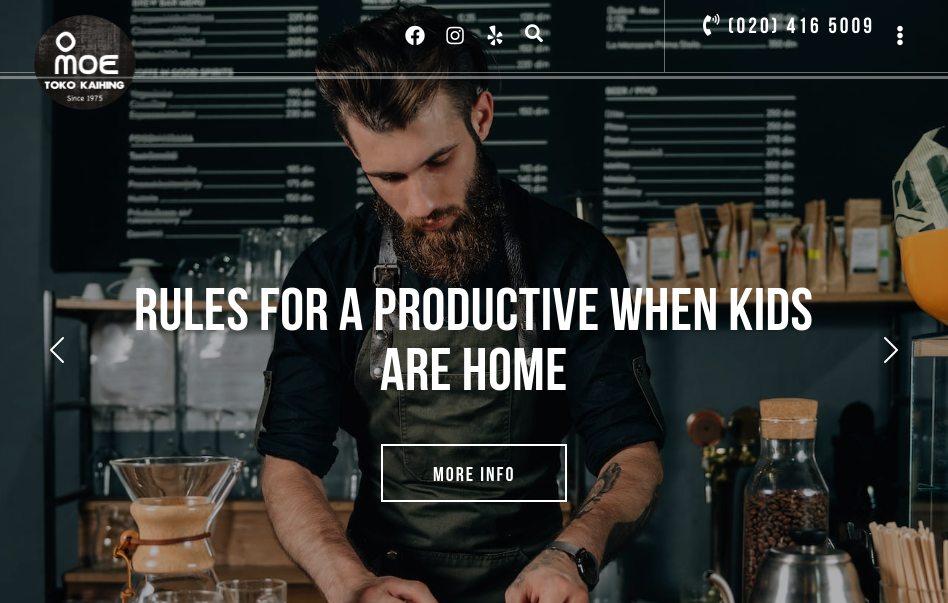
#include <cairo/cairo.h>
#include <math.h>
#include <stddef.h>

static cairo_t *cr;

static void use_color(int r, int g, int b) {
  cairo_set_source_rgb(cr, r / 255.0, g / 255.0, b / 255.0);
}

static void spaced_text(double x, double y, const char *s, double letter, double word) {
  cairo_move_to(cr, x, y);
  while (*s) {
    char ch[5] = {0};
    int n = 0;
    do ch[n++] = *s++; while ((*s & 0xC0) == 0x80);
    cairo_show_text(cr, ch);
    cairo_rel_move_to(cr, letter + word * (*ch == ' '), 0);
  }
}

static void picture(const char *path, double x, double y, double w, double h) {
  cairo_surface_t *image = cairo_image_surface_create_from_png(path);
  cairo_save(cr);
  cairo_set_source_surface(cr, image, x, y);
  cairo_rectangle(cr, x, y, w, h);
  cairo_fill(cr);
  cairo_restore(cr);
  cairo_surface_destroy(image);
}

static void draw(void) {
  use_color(255, 255, 255);
  cairo_paint(cr);
  picture("img_08.png", 0, 0, 948, 603);
  cairo_set_source_rgba(cr, 1, 1, 1, 0.4);
  cairo_rectangle(cr, 0, 72, 948, 1);
  cairo_fill(cr);
  cairo_rectangle(cr, 0, 76, 948, 3);
  cairo_fill(cr);
  picture("img_01.png", 33, 14, 103, 97);
  picture("img_02.png", 405, 25, 20, 20);
  picture("img_03.png", 446, 26, 18, 19);
  picture("img_04.png", 487, 25, 16, 21);
  picture("img_05.png", 525, 24, 18, 19);
  cairo_rectangle(cr, 664, 0, 1, 72);
  cairo_fill(cr);
  picture("img_06.png", 703, 13, 17, 23);
  picture("img_07.png", 897, 25, 6, 21);
  cairo_rectangle(cr, 382, 445, 184, 56);
  use_color(255, 255, 255);
  cairo_stroke(cr);
  picture("img_09.png", 50, 337, 14, 26);
  picture("img_10.png", 884, 337, 14, 26);
  cairo_select_font_face(cr, "Bebas Neue", CAIRO_FONT_SLANT_NORMAL, CAIRO_FONT_WEIGHT_BOLD);
  cairo_set_font_size(cr, 22);
  spaced_text(728, 33, "(020) 416 5009", 3, 0);
  cairo_set_font_size(cr, 60);
  spaced_text(134, 330, "RULES FOR A PRODUCTIVE WHEN KIDS", 0.5, 0);
  spaced_text(380, 390, "ARE HOME", 0.5, 0);
  cairo_set_font_size(cr, 20);
  spaced_text(433, 481, "MORE INFO", 2, 0);
}

int main(void) {
  cairo_surface_t *surface = cairo_image_surface_create(CAIRO_FORMAT_RGB24, 948, 603);
  cr = cairo_create(surface);
  cairo_font_options_t *options = cairo_font_options_create();
  cairo_font_options_set_hint_metrics(options, CAIRO_HINT_METRICS_OFF);
  cairo_font_options_set_hint_style(options, CAIRO_HINT_STYLE_NONE);
  cairo_set_font_options(cr, options);
  cairo_set_miter_limit(cr, 4);
  draw();
  cairo_surface_write_to_png(surface, "out.png");
  cairo_font_options_destroy(options);
  cairo_destroy(cr);
  cairo_surface_destroy(surface);
  return 0;
}
